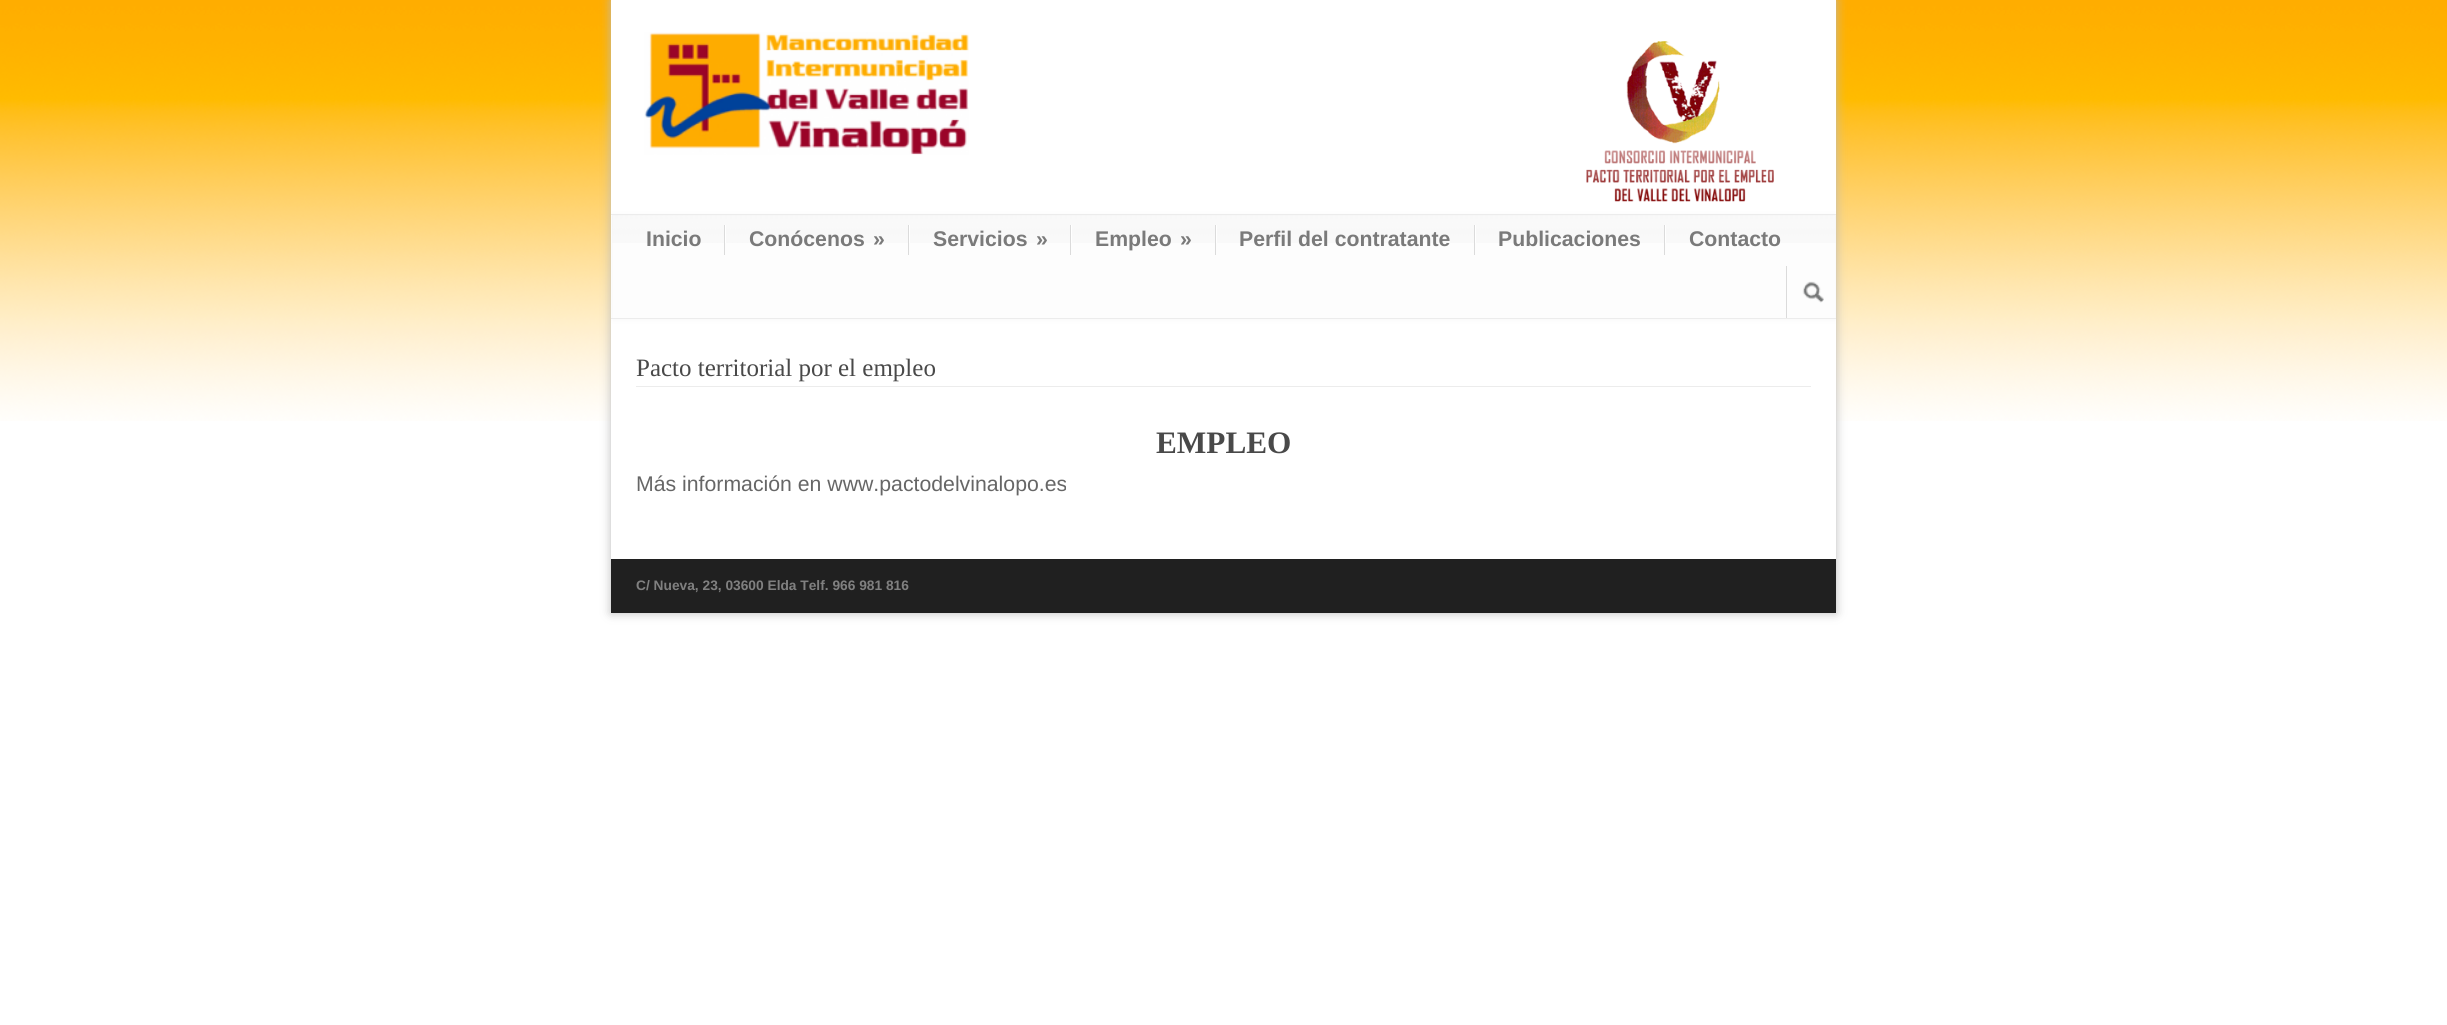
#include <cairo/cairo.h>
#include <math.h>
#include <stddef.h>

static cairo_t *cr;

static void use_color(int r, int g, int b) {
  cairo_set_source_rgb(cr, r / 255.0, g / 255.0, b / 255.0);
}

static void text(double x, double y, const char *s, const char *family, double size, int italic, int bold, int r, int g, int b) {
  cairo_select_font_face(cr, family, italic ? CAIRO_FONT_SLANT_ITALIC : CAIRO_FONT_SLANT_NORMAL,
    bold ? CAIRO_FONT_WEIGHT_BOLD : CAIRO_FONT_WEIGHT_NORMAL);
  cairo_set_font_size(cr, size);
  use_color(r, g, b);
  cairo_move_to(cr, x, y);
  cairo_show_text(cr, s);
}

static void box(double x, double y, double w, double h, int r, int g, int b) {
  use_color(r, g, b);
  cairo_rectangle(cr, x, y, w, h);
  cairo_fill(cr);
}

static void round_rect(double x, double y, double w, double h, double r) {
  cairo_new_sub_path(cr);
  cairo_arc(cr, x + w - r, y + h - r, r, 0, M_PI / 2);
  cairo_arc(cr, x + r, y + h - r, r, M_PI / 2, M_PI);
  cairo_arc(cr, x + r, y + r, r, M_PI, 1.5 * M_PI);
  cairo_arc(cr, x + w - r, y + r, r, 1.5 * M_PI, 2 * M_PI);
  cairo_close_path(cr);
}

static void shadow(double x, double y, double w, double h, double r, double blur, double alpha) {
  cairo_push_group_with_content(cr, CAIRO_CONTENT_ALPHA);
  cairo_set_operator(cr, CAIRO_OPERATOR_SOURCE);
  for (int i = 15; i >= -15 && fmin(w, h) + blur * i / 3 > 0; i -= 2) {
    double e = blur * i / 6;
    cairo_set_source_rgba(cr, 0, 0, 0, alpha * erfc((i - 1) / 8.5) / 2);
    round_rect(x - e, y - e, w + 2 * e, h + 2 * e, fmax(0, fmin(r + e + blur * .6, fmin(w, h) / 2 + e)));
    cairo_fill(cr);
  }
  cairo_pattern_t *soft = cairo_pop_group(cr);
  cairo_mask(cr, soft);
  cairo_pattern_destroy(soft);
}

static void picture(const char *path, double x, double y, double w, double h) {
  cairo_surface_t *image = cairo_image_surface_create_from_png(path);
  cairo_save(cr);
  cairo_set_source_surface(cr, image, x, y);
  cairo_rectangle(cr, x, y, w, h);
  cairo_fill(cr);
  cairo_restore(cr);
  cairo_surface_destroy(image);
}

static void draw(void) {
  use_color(255, 255, 255);
  cairo_paint(cr);
  picture("img_01.png", 0, 0, 2447, 421);
  use_color(187, 187, 187);
  shadow(611, 0, 1225, 613, 0, 5, 1);
  box(611, 0, 1225, 559, 255, 255, 255);
  picture("img_02.png", 644, 32, 325, 123);
  picture("img_03.png", 1586, 41, 188, 161);
  cairo_save(cr);
  cairo_rectangle(cr, 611, 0, 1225, 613);
  cairo_clip(cr);
  use_color(245, 245, 245);
  shadow(613, 216, 1222, 103, 0, 3, 1);
  cairo_restore(cr);
  box(613, 216, 1222, 102, 253, 253, 253);
  picture("img_04.png", 612, 215, 1224, 28);
  box(611, 214, 1225, 1, 236, 236, 236);
  box(611, 318, 1225, 1, 236, 236, 236);
  box(724, 225, 1, 30, 219, 219, 219);
  box(908, 225, 1, 30, 219, 219, 219);
  box(725, 225, 1, 18, 255, 255, 255);
  box(1070, 225, 1, 30, 219, 219, 219);
  box(909, 225, 1, 18, 255, 255, 255);
  box(1215, 225, 1, 30, 219, 219, 219);
  box(1071, 225, 1, 18, 255, 255, 255);
  box(1474, 225, 1, 30, 219, 219, 219);
  box(1216, 225, 1, 18, 255, 255, 255);
  box(1664, 225, 1, 30, 219, 219, 219);
  box(1475, 225, 1, 18, 255, 255, 255);
  box(1665, 225, 1, 18, 255, 255, 255);
  box(1786, 266, 1, 52, 219, 219, 219);
  picture("img_05.png", 1802, 281, 22, 22);
  box(636, 386, 1175, 1, 236, 236, 236);
  box(611, 559, 1225, 54, 32, 32, 32);
  text(646, 246, "Inicio", "Liberation Sans", 21.25, 0, 1, 122, 122, 122);
  text(749, 246, "Conócenos", "Liberation Sans", 21.25, 0, 1, 122, 122, 122);
  text(873, 246, "»", "Liberation Sans", 21.25, 0, 1, 122, 122, 122);
  text(933, 246, "Servicios", "Liberation Sans", 21.25, 0, 1, 122, 122, 122);
  text(1036, 246, "»", "Liberation Sans", 21.25, 0, 1, 122, 122, 122);
  text(1095, 246, "Empleo", "Liberation Sans", 21.25, 0, 1, 122, 122, 122);
  text(1180, 246, "»", "Liberation Sans", 21.25, 0, 1, 122, 122, 122);
  text(1239, 246, "Perfil del contratante", "Liberation Sans", 21.25, 0, 1, 122, 122, 122);
  text(1498, 246, "Publicaciones", "Liberation Sans", 21.25, 0, 1, 122, 122, 122);
  text(1689, 246, "Contacto", "Liberation Sans", 21.25, 0, 1, 122, 122, 122);
  text(636, 376, "Pacto territorial por el empleo", "Liberation Serif", 25, 0, 0, 73, 73, 73);
  text(1156, 453, "EMPLEO", "Liberation Serif", 31.25, 0, 1, 73, 73, 73);
  text(636, 491, "Más información en www.pactodelvinalopo.es", "Liberation Sans", 21.25, 0, 0, 102, 102, 102);
  text(636, 590, "C/ Nueva, 23, 03600 Elda Telf. 966 981 816", "Liberation Sans", 13.75, 0, 1, 128, 128, 128);
}

int main(void) {
  cairo_surface_t *surface = cairo_image_surface_create(CAIRO_FORMAT_RGB24, 2447, 1025);
  cr = cairo_create(surface);
  cairo_font_options_t *options = cairo_font_options_create();
  cairo_font_options_set_hint_metrics(options, CAIRO_HINT_METRICS_OFF);
  cairo_font_options_set_hint_style(options, CAIRO_HINT_STYLE_NONE);
  cairo_set_font_options(cr, options);
  cairo_set_miter_limit(cr, 4);
  draw();
  cairo_surface_write_to_png(surface, "out.png");
  cairo_font_options_destroy(options);
  cairo_destroy(cr);
  cairo_surface_destroy(surface);
  return 0;
}
